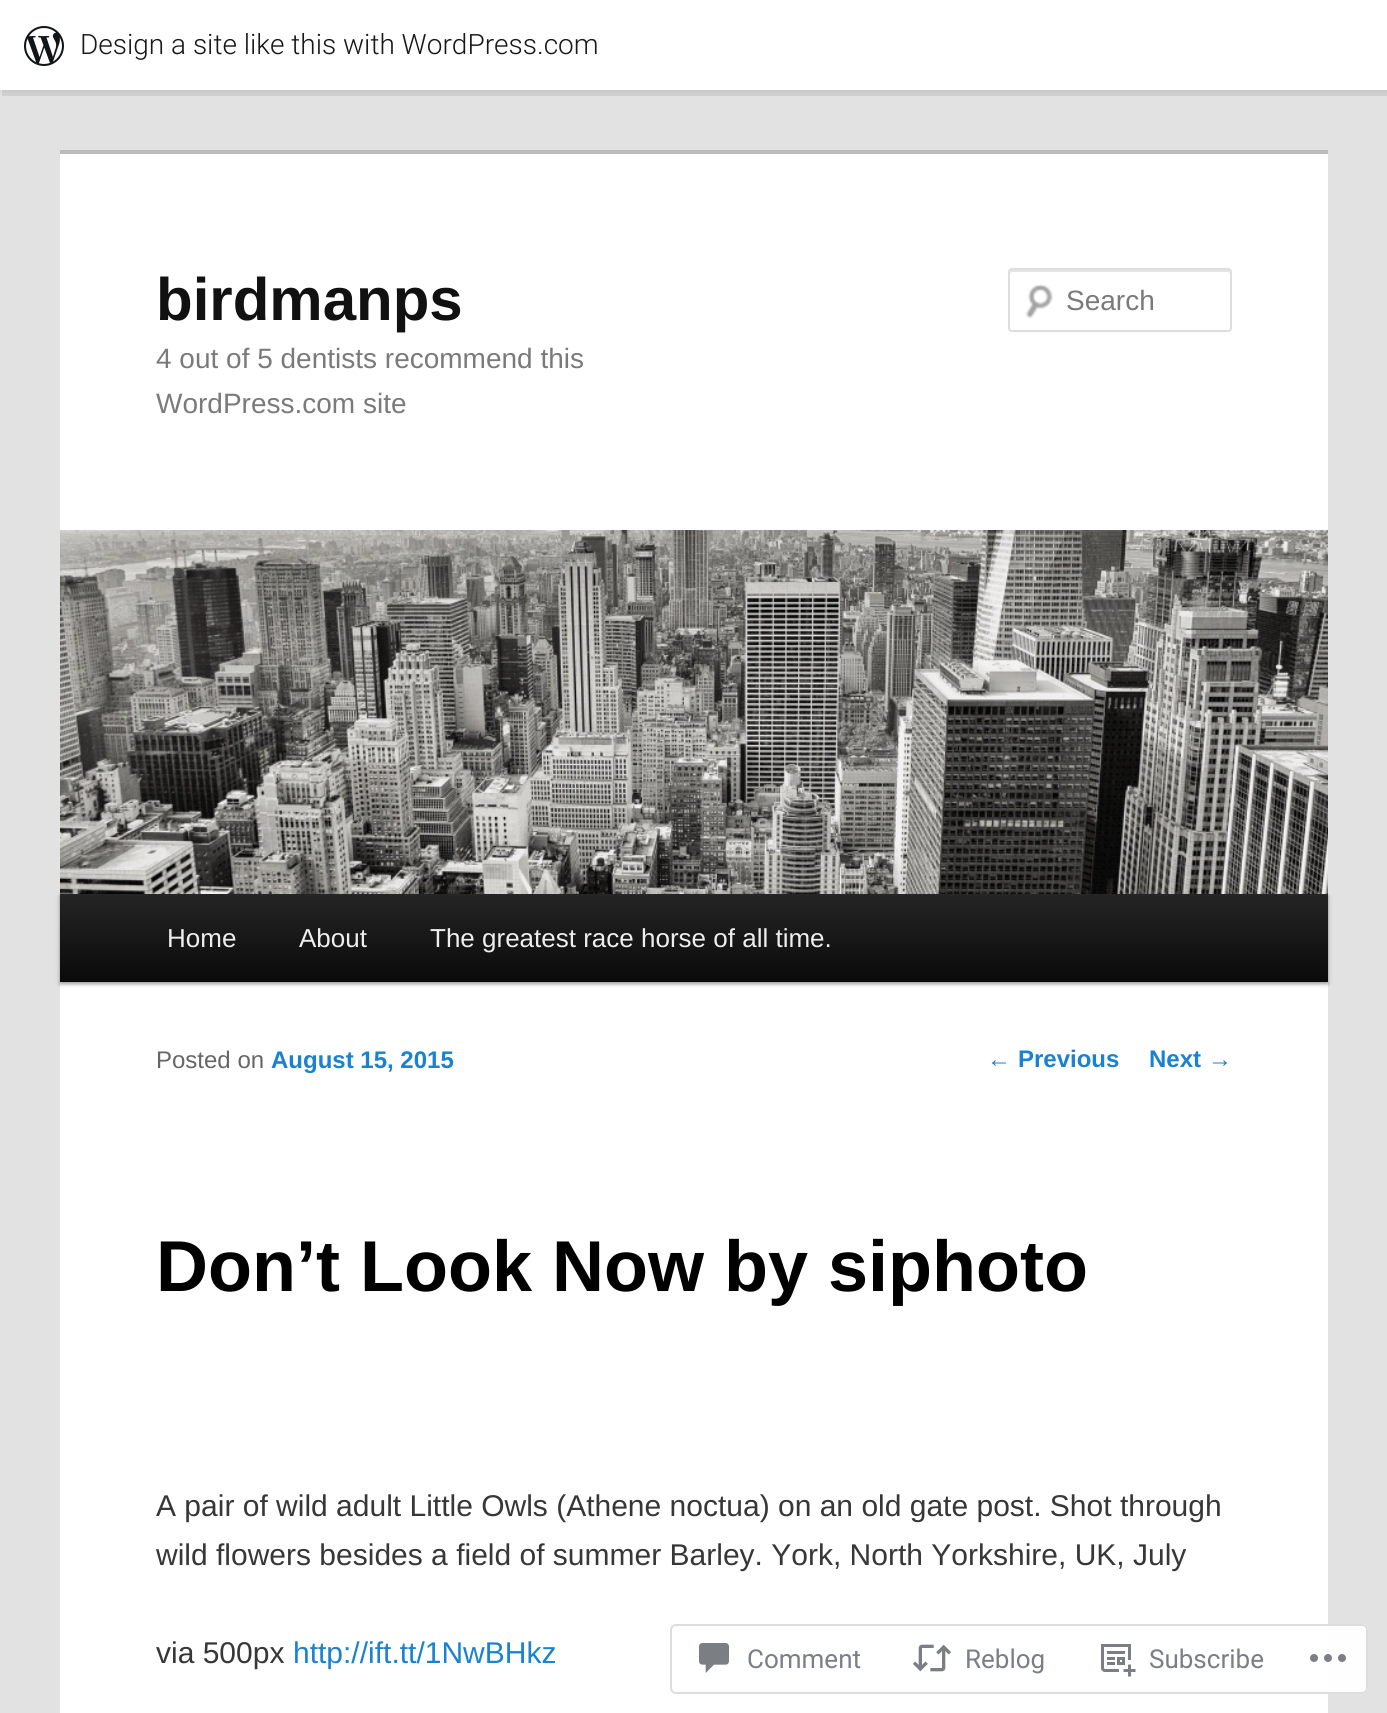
#include <cairo/cairo.h>
#include <math.h>
#include <stddef.h>

static cairo_t *cr;

static void use_color(int r, int g, int b) {
  cairo_set_source_rgb(cr, r / 255.0, g / 255.0, b / 255.0);
}

static void text(double x, double y, const char *s, const char *family, double size, int italic, int bold, int r, int g, int b) {
  cairo_select_font_face(cr, family, italic ? CAIRO_FONT_SLANT_ITALIC : CAIRO_FONT_SLANT_NORMAL,
    bold ? CAIRO_FONT_WEIGHT_BOLD : CAIRO_FONT_WEIGHT_NORMAL);
  cairo_set_font_size(cr, size);
  use_color(r, g, b);
  cairo_move_to(cr, x, y);
  cairo_show_text(cr, s);
}

static void box(double x, double y, double w, double h, int r, int g, int b) {
  use_color(r, g, b);
  cairo_rectangle(cr, x, y, w, h);
  cairo_fill(cr);
}

static void round_rect(double x, double y, double w, double h, double r) {
  cairo_new_sub_path(cr);
  cairo_arc(cr, x + w - r, y + h - r, r, 0, M_PI / 2);
  cairo_arc(cr, x + r, y + h - r, r, M_PI / 2, M_PI);
  cairo_arc(cr, x + r, y + r, r, M_PI, 1.5 * M_PI);
  cairo_arc(cr, x + w - r, y + r, r, 1.5 * M_PI, 2 * M_PI);
  cairo_close_path(cr);
}

static void shadow(double x, double y, double w, double h, double r, double blur, double alpha) {
  cairo_push_group_with_content(cr, CAIRO_CONTENT_ALPHA);
  cairo_set_operator(cr, CAIRO_OPERATOR_SOURCE);
  for (int i = 15; i >= -15 && fmin(w, h) + blur * i / 3 > 0; i -= 2) {
    double e = blur * i / 6;
    cairo_set_source_rgba(cr, 0, 0, 0, alpha * erfc((i - 1) / 8.5) / 2);
    round_rect(x - e, y - e, w + 2 * e, h + 2 * e, fmax(0, fmin(r + e + blur * .6, fmin(w, h) / 2 + e)));
    cairo_fill(cr);
  }
  cairo_pattern_t *soft = cairo_pop_group(cr);
  cairo_mask(cr, soft);
  cairo_pattern_destroy(soft);
}

static void picture(const char *path, double x, double y, double w, double h) {
  cairo_surface_t *image = cairo_image_surface_create_from_png(path);
  cairo_save(cr);
  cairo_set_source_surface(cr, image, x, y);
  cairo_rectangle(cr, x, y, w, h);
  cairo_fill(cr);
  cairo_restore(cr);
  cairo_surface_destroy(image);
}

static void draw(void) {
  cairo_pattern_t *gradient;
  use_color(226, 226, 226);
  cairo_paint(cr);
  use_color(0, 0, 0);
  shadow(0, 2, 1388, 90, 0, 2, 0.05);
  cairo_set_source_rgba(cr, 0, 0, 0, 0.08);
  cairo_new_path(cr);
  cairo_move_to(cr, 2, 90);
  cairo_line_to(cr, 2, 96);
  cairo_line_to(cr, 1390, 96);
  cairo_line_to(cr, 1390, 6);
  cairo_line_to(cr, 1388, 6);
  cairo_line_to(cr, 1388, 90);
  cairo_close_path(cr);
  cairo_fill(cr);
  box(0, 0, 1387, 90, 255, 255, 255);
  picture("img_01.png", 24, 26, 40, 40);
  box(60, 154, 1268, 1559, 255, 255, 255);
  box(60, 150, 1268, 4, 187, 187, 187);
  picture("img_02.png", 1025, 284, 28, 35);
  use_color(230, 230, 230);
  cairo_new_path(cr);
  cairo_move_to(cr, 1012, 272);
  cairo_line_to(cr, 1228, 272);
  cairo_curve_to(cr, 1229, 272, 1230, 273, 1230, 274);
  cairo_line_to(cr, 1230, 272);
  cairo_curve_to(cr, 1230, 271, 1229, 270, 1228, 270);
  cairo_line_to(cr, 1012, 270);
  cairo_curve_to(cr, 1011, 270, 1010, 271, 1010, 272);
  cairo_line_to(cr, 1010, 274);
  cairo_curve_to(cr, 1010, 273, 1011, 272, 1012, 272);
  cairo_close_path(cr);
  cairo_fill(cr);
  round_rect(1009, 269, 222, 62, 3);
  use_color(221, 221, 221);
  cairo_stroke(cr);
  use_color(0, 0, 0);
  shadow(60, 896, 1268, 88, 0, 2, 0.4);
  picture("img_03.png", 60, 530, 1268, 364);
  gradient = cairo_pattern_create_linear(694, 894, 694, 982);
  cairo_pattern_add_color_stop_rgba(gradient, 0, 0.145, 0.145, 0.145, 1);
  cairo_pattern_add_color_stop_rgba(gradient, 1, 0.039, 0.039, 0.039, 1);
  cairo_set_source(cr, gradient);
  cairo_pattern_destroy(gradient);
  cairo_rectangle(cr, 60, 894, 1268, 88);
  cairo_fill(cr);
  cairo_set_source_rgba(cr, 1, 1, 1, 0.98);
  round_rect(670, 1624, 698, 70, 6);
  cairo_fill(cr);
  round_rect(671, 1625, 696, 68, 5);
  cairo_set_source_rgba(cr, 0.863, 0.863, 0.871, 0.98);
  cairo_stroke(cr);
  picture("img_04.png", 699, 1643, 30, 30);
  picture("img_05.png", 912, 1644, 40, 28);
  picture("img_06.png", 1101, 1644, 35, 33);
  picture("img_07.png", 1310, 1654, 36, 8);
  text(80, 54, "Design a site like this with WordPress.com", "Roboto Light", 28, 0, 0, 23, 23, 23);
  text(156, 320, "birdmanps", "Liberation Sans", 60, 0, 1, 17, 17, 17);
  text(156, 368, "4 out of 5 dentists recommend this", "Liberation Sans", 28, 0, 0, 122, 122, 122);
  text(156, 413, "WordPress.com site", "Liberation Sans", 28, 0, 0, 122, 122, 122);
  text(1066, 310, "Search", "Liberation Sans", 28, 0, 0, 122, 122, 122);
  text(167, 947, "Home", "Liberation Sans", 26, 0, 0, 238, 238, 238);
  text(299, 947, "About", "Liberation Sans", 26, 0, 0, 238, 238, 238);
  text(430, 947, "The greatest race horse of all time.", "Liberation Sans", 26, 0, 0, 238, 238, 238);
  text(987, 1067, "←", "Liberation Sans", 24, 0, 0, 25, 130, 209);
  text(1018, 1067, "Previous", "Liberation Sans", 24, 0, 1, 25, 130, 209);
  text(1149, 1067, "Next", "Liberation Sans", 24, 0, 1, 25, 130, 209);
  text(1208, 1067, "→", "Liberation Sans", 24, 0, 0, 25, 130, 209);
  text(156, 1068, "Posted on", "Liberation Sans", 24, 0, 0, 102, 102, 102);
  text(271, 1068, "August 15, 2015", "Liberation Sans", 24, 0, 1, 25, 130, 209);
  text(156, 1291, "Don’t Look Now by siphoto", "Liberation Sans", 72, 0, 1, 0, 0, 0);
  text(156, 1516, "A pair of wild adult Little Owls (Athene noctua) on an old gate post. Shot through", "Liberation Sans", 30, 0, 0, 55, 55, 55);
  text(156, 1565, "wild flowers besides a field of summer Barley. York, North Yorkshire, UK, July", "Liberation Sans", 30, 0, 0, 55, 55, 55);
  text(156, 1663, "via 500px", "Liberation Sans", 30, 0, 0, 55, 55, 55);
  text(293, 1663, "http://ift.tt/1NwBHkz", "Liberation Sans", 30, 0, 0, 25, 130, 209);
  text(747, 1668, "Comment", "Roboto", 26, 0, 0, 123, 127, 133);
  text(965, 1668, "Reblog", "Roboto", 26, 0, 0, 123, 127, 133);
  text(1149, 1668, "Subscribe", "Roboto", 26, 0, 0, 123, 127, 133);
}

int main(void) {
  cairo_surface_t *surface = cairo_image_surface_create(CAIRO_FORMAT_RGB24, 1387, 1713);
  cr = cairo_create(surface);
  cairo_font_options_t *options = cairo_font_options_create();
  cairo_font_options_set_hint_metrics(options, CAIRO_HINT_METRICS_OFF);
  cairo_font_options_set_hint_style(options, CAIRO_HINT_STYLE_NONE);
  cairo_set_font_options(cr, options);
  cairo_set_miter_limit(cr, 4);
  draw();
  cairo_surface_write_to_png(surface, "out.png");
  cairo_font_options_destroy(options);
  cairo_destroy(cr);
  cairo_surface_destroy(surface);
  return 0;
}
